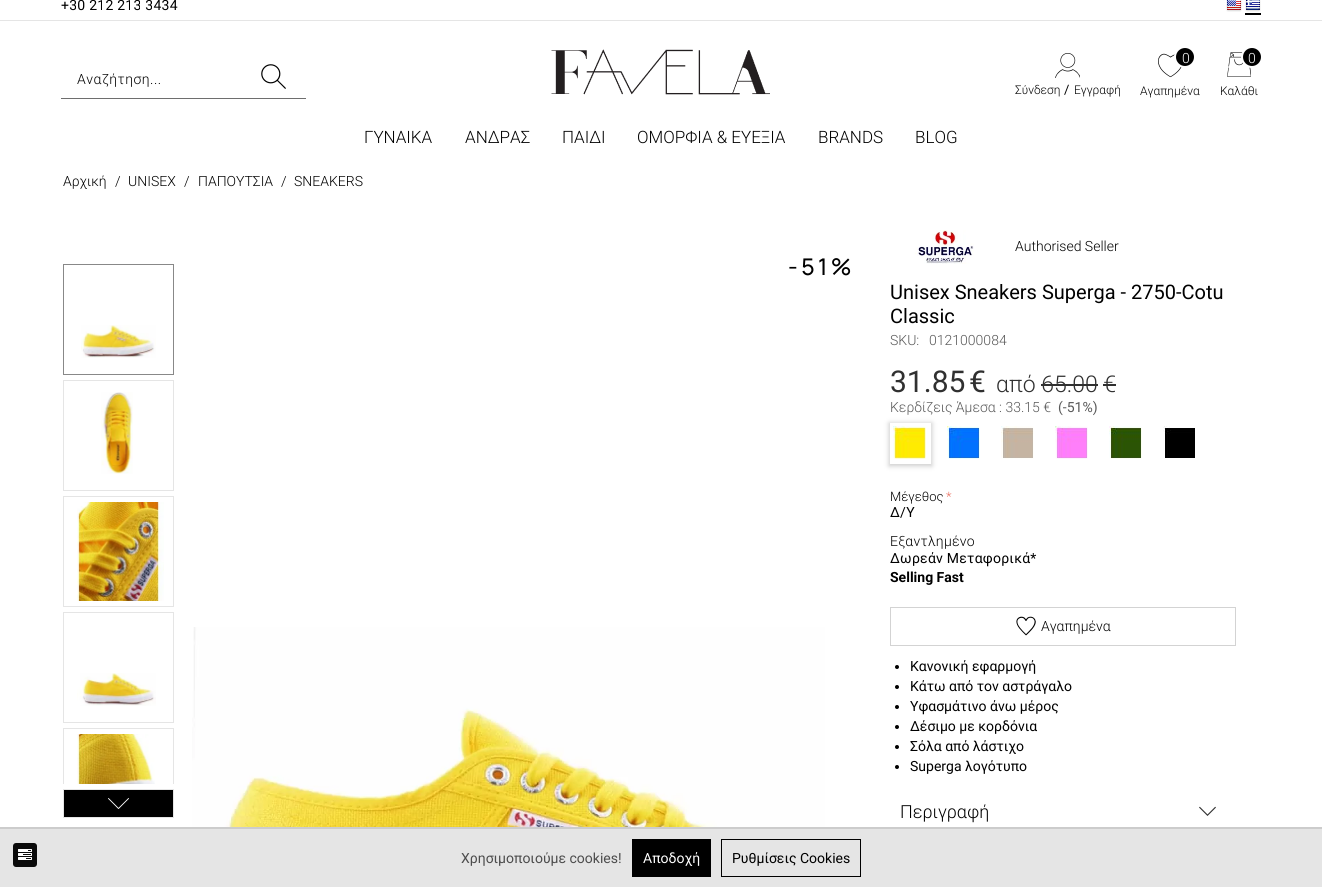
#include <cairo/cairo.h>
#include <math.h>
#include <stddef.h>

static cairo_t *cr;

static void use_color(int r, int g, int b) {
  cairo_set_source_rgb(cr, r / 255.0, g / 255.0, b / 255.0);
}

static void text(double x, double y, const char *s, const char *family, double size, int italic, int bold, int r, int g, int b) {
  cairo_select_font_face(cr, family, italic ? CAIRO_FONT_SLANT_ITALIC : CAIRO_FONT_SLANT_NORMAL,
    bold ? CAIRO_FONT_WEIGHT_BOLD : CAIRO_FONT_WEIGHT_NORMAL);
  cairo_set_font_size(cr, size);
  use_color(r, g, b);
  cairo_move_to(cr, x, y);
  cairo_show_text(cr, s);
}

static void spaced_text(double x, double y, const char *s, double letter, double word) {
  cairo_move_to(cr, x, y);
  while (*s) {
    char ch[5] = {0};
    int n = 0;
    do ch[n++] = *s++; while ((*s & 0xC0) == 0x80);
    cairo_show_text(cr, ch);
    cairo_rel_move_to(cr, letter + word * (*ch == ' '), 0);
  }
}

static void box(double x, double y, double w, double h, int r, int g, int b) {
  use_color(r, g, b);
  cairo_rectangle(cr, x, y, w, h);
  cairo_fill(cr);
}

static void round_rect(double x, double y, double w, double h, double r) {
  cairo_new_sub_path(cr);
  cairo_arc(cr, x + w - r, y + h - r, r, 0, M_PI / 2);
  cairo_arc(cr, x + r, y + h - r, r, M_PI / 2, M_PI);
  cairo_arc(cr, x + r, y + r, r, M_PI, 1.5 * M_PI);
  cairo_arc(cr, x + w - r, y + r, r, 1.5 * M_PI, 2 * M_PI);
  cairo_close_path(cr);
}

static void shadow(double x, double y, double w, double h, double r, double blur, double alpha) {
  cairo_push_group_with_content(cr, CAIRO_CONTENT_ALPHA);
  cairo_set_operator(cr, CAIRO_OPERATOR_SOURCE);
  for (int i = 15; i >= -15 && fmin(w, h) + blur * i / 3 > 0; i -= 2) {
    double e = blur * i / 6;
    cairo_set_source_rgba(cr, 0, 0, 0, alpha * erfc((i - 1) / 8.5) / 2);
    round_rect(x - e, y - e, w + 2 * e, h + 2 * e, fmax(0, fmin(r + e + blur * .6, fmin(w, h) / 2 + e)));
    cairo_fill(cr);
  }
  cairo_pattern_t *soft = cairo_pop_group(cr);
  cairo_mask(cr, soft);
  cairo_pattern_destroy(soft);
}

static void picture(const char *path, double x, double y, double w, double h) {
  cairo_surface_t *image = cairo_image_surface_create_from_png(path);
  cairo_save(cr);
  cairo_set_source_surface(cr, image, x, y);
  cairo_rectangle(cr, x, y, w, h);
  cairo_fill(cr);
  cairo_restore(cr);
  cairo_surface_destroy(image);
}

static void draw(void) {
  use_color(255, 255, 255);
  cairo_paint(cr);
  box(0, 20, 1322, 1, 229, 229, 229);
  picture("img_01.png", 1226, 0, 16, 12);
  box(1245, 13, 16, 2, 0, 0, 0);
  picture("img_02.png", 1245, 0, 16, 12);
  box(61, 98, 245, 1, 110, 110, 110);
  picture("img_03.png", 261, 64, 25, 25);
  picture("img_04.png", 551, 49, 219, 46);
  picture("img_05.png", 1055, 53, 25, 25);
  picture("img_06.png", 1158, 53, 24, 25);
  use_color(0, 0, 0);
  cairo_arc(cr, 1185, 57, 10, 0, 2 * M_PI);
  cairo_fill_preserve(cr);
  use_color(255, 255, 255);
  cairo_stroke(cr);
  picture("img_07.png", 1227, 52, 24, 25);
  use_color(0, 0, 0);
  cairo_arc(cr, 1252, 57, 10, 0, 2 * M_PI);
  cairo_fill_preserve(cr);
  use_color(255, 255, 255);
  cairo_stroke(cr);
  cairo_rectangle(cr, 63.5, 264.5, 110, 110);
  use_color(136, 136, 136);
  cairo_set_line_width(cr, 1);
  cairo_stroke(cr);
  picture("img_08.png", 81, 325, 75, 33);
  cairo_rectangle(cr, 63.5, 380.5, 110, 110);
  use_color(229, 229, 229);
  cairo_stroke(cr);
  picture("img_09.png", 101, 392, 32, 82);
  cairo_rectangle(cr, 63.5, 496.5, 110, 110);
  cairo_stroke(cr);
  picture("img_10.png", 77, 502, 87, 99);
  cairo_rectangle(cr, 63.5, 612.5, 110, 110);
  cairo_stroke(cr);
  picture("img_11.png", 77, 673, 79, 33);
  use_color(0, 0, 0);
  cairo_rectangle(cr, 63.5, 789.5, 110, 28);
  cairo_fill_preserve(cr);
  use_color(229, 229, 229);
  cairo_stroke(cr);
  picture("img_13.png", 108, 798, 21, 11);
  cairo_save(cr);
  cairo_rectangle(cr, 63, 264, 116, 520);
  cairo_clip(cr);
  cairo_rectangle(cr, 63.5, 728.5, 110, 110);
  cairo_stroke(cr);
  cairo_restore(cr);
  picture("img_12.png", 77, 734, 78, 50);
  picture("img_14.png", 192, 627, 633, 200);
  picture("img_15.png", 915, 230, 59, 34);
  box(1041, 384, 57, 2, 48, 48, 48);
  box(1103, 384, 13, 2, 48, 48, 48);
  cairo_save(cr);
  cairo_set_fill_rule(cr, CAIRO_FILL_RULE_EVEN_ODD);
  cairo_new_path(cr);
  cairo_move_to(cr, 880, 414);
  cairo_line_to(cr, 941, 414);
  cairo_line_to(cr, 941, 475);
  cairo_line_to(cr, 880, 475);
  cairo_close_path(cr);
  cairo_move_to(cr, 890, 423);
  cairo_line_to(cr, 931, 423);
  cairo_line_to(cr, 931, 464);
  cairo_line_to(cr, 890, 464);
  cairo_close_path(cr);
  cairo_clip(cr);
  use_color(204, 204, 204);
  shadow(889, 423, 43, 43, 0, 2.5, 1);
  cairo_restore(cr);
  picture("img_16.png", 893, 426, 33, 33);
  picture("img_17.png", 947, 426, 33, 33);
  picture("img_18.png", 1001, 426, 33, 33);
  picture("img_19.png", 1055, 426, 33, 33);
  picture("img_20.png", 1109, 426, 33, 33);
  picture("img_21.png", 1163, 426, 32, 32);
  cairo_rectangle(cr, 890.5, 607.5, 345, 38);
  use_color(211, 211, 211);
  cairo_stroke(cr);
  picture("img_22.png", 1016, 616, 20, 20);
  use_color(0, 0, 0);
  cairo_arc(cr, 897, 667, 2, 0, 2 * M_PI);
  cairo_fill(cr);
  cairo_arc(cr, 897, 687, 2, 0, 2 * M_PI);
  cairo_fill(cr);
  cairo_arc(cr, 897, 707, 2, 0, 2 * M_PI);
  cairo_fill(cr);
  cairo_arc(cr, 897, 727, 2, 0, 2 * M_PI);
  cairo_fill(cr);
  cairo_arc(cr, 897, 747, 2, 0, 2 * M_PI);
  cairo_fill(cr);
  cairo_arc(cr, 897, 767, 2, 0, 2 * M_PI);
  cairo_fill(cr);
  picture("img_23.png", 1199, 806, 17, 10);
  box(0, 829, 1322, 58, 229, 229, 229);
  use_color(10, 10, 10);
  round_rect(13, 843, 24, 24, 3);
  cairo_fill(cr);
  picture("img_24.png", 18, 849, 14, 11);
  box(0, 827, 1322, 2, 204, 204, 204);
  box(632, 839, 79, 38, 0, 0, 0);
  cairo_rectangle(cr, 721.5, 839.5, 139, 37);
  cairo_stroke(cr);
  cairo_select_font_face(cr, "Roboto", CAIRO_FONT_SLANT_NORMAL, CAIRO_FONT_WEIGHT_NORMAL);
  cairo_set_font_size(cr, 14);
  spaced_text(61, 10, "+30 212 213 3434", 0.25, 0);
  cairo_select_font_face(cr, "Roboto Light", CAIRO_FONT_SLANT_NORMAL, CAIRO_FONT_WEIGHT_NORMAL);
  spaced_text(77, 84, "Αναζήτηση...", 0.5, 0);
  text(1015, 94, "Σύνδεση", "Roboto Light", 12, 0, 0, 0, 0, 0);
  text(1064, 94, "/", "Roboto", 13, 0, 0, 0, 0, 0);
  text(1074, 94, "Εγγραφή", "Roboto Light", 12, 0, 0, 0, 0, 0);
  text(1182, 63, "0", "Roboto Light", 14, 0, 0, 255, 255, 255);
  text(1140, 95, "Αγαπημένα", "Roboto Light", 12, 0, 0, 0, 0, 0);
  text(1248, 63, "0", "Roboto Light", 14, 0, 0, 255, 255, 255);
  text(1220, 95, "Καλάθι", "Roboto Light", 12, 0, 0, 0, 0, 0);
  text(364, 143, "ΓΥΝΑΙΚΑ", "Roboto Light", 17, 0, 0, 0, 0, 0);
  text(465, 143, "ΑΝΔΡΑΣ", "Roboto Light", 17, 0, 0, 0, 0, 0);
  text(562, 143, "ΠΑΙΔΙ", "Roboto Light", 17, 0, 0, 0, 0, 0);
  text(637, 143, "ΟΜΟΡΦΙΑ & ΕΥΕΞΙΑ", "Roboto Light", 17, 0, 0, 0, 0, 0);
  text(818, 143, "BRANDS", "Roboto Light", 17, 0, 0, 0, 0, 0);
  text(915, 143, "BLOG", "Roboto Light", 17, 0, 0, 0, 0, 0);
  text(63, 186, "Αρχική", "Roboto Light", 14, 0, 0, 0, 0, 0);
  text(115, 186, "/", "Roboto Light", 14, 0, 0, 0, 0, 0);
  text(128, 186, "UNISEX", "Roboto Light", 14, 0, 0, 0, 0, 0);
  text(184, 186, "/", "Roboto Light", 14, 0, 0, 0, 0, 0);
  text(198, 186, "ΠΑΠΟΥΤΣΙΑ", "Roboto Light", 14, 0, 0, 0, 0, 0);
  text(281, 186, "/", "Roboto Light", 14, 0, 0, 0, 0, 0);
  text(294, 186, "SNEAKERS", "Roboto Light", 14, 0, 0, 0, 0, 0);
  cairo_select_font_face(cr, "Manrope Medium", CAIRO_FONT_SLANT_NORMAL, CAIRO_FONT_WEIGHT_NORMAL);
  cairo_set_font_size(cr, 23);
  spaced_text(788, 275, "-51%", 3.5, 0);
  text(1015, 251, "Authorised Seller", "Roboto Light", 14, 0, 0, 0, 0, 0);
  text(890, 299, "Unisex Sneakers Superga - 2750-Cotu", "Roboto", 20, 0, 0, 0, 0, 0);
  text(890, 323, "Classic", "Roboto", 20, 0, 0, 0, 0, 0);
  text(890, 345, "SKU:", "Roboto Light", 14, 0, 0, 89, 89, 89);
  text(929, 345, "0121000084", "Roboto Light", 14, 0, 0, 89, 89, 89);
  text(890, 392, "31.85", "Roboto", 30, 0, 0, 48, 48, 48);
  text(969, 392, "€", "Roboto", 30, 0, 0, 48, 48, 48);
  text(996, 392, "από 65.00 €", "Roboto Light", 23, 0, 0, 48, 48, 48);
  text(890, 412, "Κερδίζεις Άμεσα : 33.15 €", "Roboto Light", 14, 0, 0, 89, 89, 89);
  text(1058, 412, "(-51%)", "Roboto", 14, 0, 0, 89, 89, 89);
  text(890, 501, "Μέγεθος", "Roboto Light", 13, 0, 0, 0, 0, 0);
  text(946, 501, "*", "Roboto Light", 13, 0, 0, 234, 113, 98);
  cairo_select_font_face(cr, "Roboto", CAIRO_FONT_SLANT_NORMAL, CAIRO_FONT_WEIGHT_NORMAL);
  cairo_set_font_size(cr, 14);
  use_color(0, 0, 0);
  spaced_text(890, 517, "Δ/Υ", 0.25, 0);
  cairo_select_font_face(cr, "Roboto Light", CAIRO_FONT_SLANT_NORMAL, CAIRO_FONT_WEIGHT_NORMAL);
  spaced_text(890, 546, "Εξαντλημένο", 0.25, 0);
  cairo_select_font_face(cr, "Roboto", CAIRO_FONT_SLANT_NORMAL, CAIRO_FONT_WEIGHT_NORMAL);
  spaced_text(890, 563, "Δωρεάν Μεταφορικά*", 0.25, 0);
  text(890, 582, "Selling Fast", "Roboto", 14, 0, 1, 0, 0, 0);
  text(1041, 631, "Αγαπημένα", "Roboto Light", 14, 0, 0, 0, 0, 0);
  text(910, 671, "Κανονική εφαρμογή", "Roboto", 14, 0, 0, 0, 0, 0);
  text(910, 691, "Κάτω από τον αστράγαλο", "Roboto", 14, 0, 0, 0, 0, 0);
  text(910, 711, "Υφασμάτινο άνω μέρος", "Roboto", 14, 0, 0, 0, 0, 0);
  text(910, 731, "Δέσιμο με κορδόνια", "Roboto", 14, 0, 0, 0, 0, 0);
  text(910, 751, "Σόλα από λάστιχο", "Roboto", 14, 0, 0, 0, 0, 0);
  text(910, 771, "Superga λογότυπο", "Roboto", 14, 0, 0, 0, 0, 0);
  text(900, 818, "Περιγραφή", "Roboto Light", 18, 0, 0, 0, 0, 0);
  text(461, 863, "Χρησιμοποιούμε cookies!", "Roboto", 14, 0, 0, 76, 76, 76);
  text(643, 863, "Αποδοχή", "Roboto", 14, 0, 0, 255, 255, 255);
  text(732, 863, "Ρυθμίσεις Cookies", "Roboto", 14, 0, 0, 0, 0, 0);
}

int main(void) {
  cairo_surface_t *surface = cairo_image_surface_create(CAIRO_FORMAT_RGB24, 1322, 887);
  cr = cairo_create(surface);
  cairo_font_options_t *options = cairo_font_options_create();
  cairo_font_options_set_hint_metrics(options, CAIRO_HINT_METRICS_OFF);
  cairo_font_options_set_hint_style(options, CAIRO_HINT_STYLE_NONE);
  cairo_set_font_options(cr, options);
  cairo_set_miter_limit(cr, 4);
  draw();
  cairo_surface_write_to_png(surface, "out.png");
  cairo_font_options_destroy(options);
  cairo_destroy(cr);
  cairo_surface_destroy(surface);
  return 0;
}
